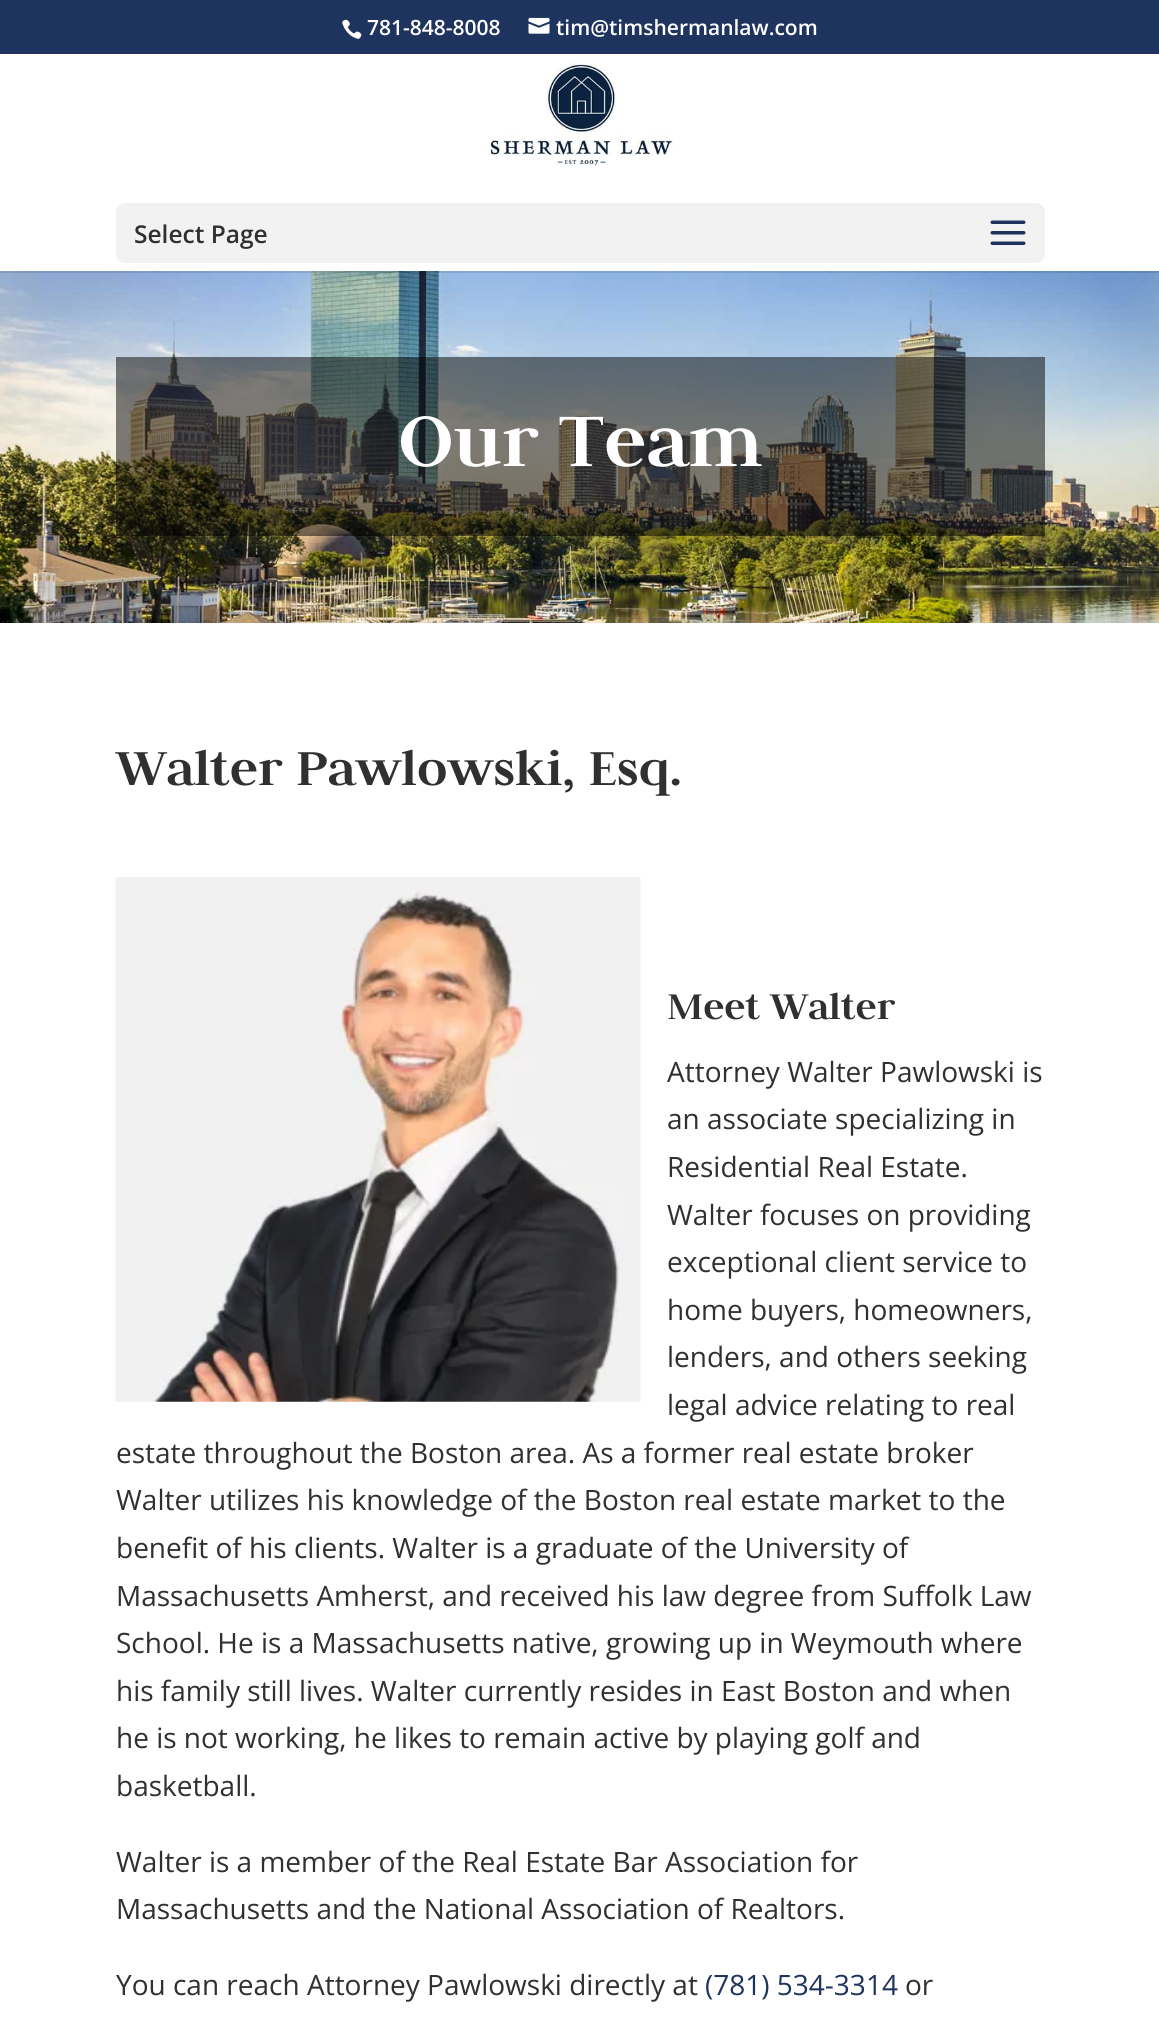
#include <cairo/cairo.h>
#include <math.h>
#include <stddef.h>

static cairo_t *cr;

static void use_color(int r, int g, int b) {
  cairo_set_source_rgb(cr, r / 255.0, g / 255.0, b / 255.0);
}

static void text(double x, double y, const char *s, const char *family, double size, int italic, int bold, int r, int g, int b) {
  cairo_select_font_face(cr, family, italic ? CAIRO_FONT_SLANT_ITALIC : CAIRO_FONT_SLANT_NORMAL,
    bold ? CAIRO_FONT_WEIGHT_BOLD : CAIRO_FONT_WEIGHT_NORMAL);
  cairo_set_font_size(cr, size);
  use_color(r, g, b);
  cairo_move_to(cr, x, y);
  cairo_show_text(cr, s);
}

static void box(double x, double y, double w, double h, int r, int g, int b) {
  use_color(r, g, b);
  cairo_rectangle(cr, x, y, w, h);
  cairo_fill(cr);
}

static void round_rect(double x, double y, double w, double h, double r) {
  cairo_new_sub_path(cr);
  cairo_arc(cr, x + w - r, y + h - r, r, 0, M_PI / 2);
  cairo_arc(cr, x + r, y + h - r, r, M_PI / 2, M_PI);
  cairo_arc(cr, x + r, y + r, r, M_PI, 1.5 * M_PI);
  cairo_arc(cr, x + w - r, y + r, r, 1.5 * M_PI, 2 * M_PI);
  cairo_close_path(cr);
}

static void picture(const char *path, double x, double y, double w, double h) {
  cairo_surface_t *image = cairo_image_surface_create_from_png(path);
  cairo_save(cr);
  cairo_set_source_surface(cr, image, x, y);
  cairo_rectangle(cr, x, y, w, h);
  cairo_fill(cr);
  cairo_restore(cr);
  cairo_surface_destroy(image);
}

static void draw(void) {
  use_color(255, 255, 255);
  cairo_paint(cr);
  box(0, 0, 1159, 54, 30, 51, 94);
  picture("img_01.png", 342, 19, 20, 20);
  picture("img_02.png", 528, 17, 22, 17);
  picture("img_05.png", 0, 271, 1159, 352);
  cairo_set_source_rgba(cr, 0, 0, 0, 0.1);
  cairo_rectangle(cr, 0, 271, 1159, 2);
  cairo_fill(cr);
  picture("img_03.png", 485, 63, 190, 103);
  use_color(242, 242, 242);
  round_rect(116, 203, 929, 60, 9);
  cairo_fill(cr);
  picture("img_04.png", 990, 220, 36, 25);
  cairo_set_source_rgba(cr, 0, 0, 0, 0.5);
  cairo_rectangle(cr, 116, 357, 929, 179);
  cairo_fill(cr);
  picture("img_06.png", 115, 877, 526, 525);
  text(367, 35, "781-848-8008", "Open Sans SemiBold", 21, 0, 0, 255, 255, 255);
  text(556, 35, "tim@timshermanlaw.com", "Open Sans SemiBold", 21, 0, 0, 255, 255, 255);
  text(134, 243, "Select Page", "Open Sans SemiBold", 24.5, 0, 0, 48, 48, 48);
  text(398, 466, "Our Team", "Judson", 84, 0, 1, 255, 255, 255);
  text(116, 785, "Walter Pawlowski, Esq.", "Judson", 56, 0, 1, 48, 48, 48);
  text(667, 1019, "Meet Walter", "Judson", 42, 0, 1, 48, 48, 48);
  text(667, 1082, "Attorney Walter Pawlowski is", "Open Sans", 28, 0, 0, 48, 48, 48);
  text(667, 1129, "an associate specializing in", "Open Sans", 28, 0, 0, 48, 48, 48);
  text(667, 1177, "Residential Real Estate.", "Open Sans", 28, 0, 0, 48, 48, 48);
  text(667, 1225, "Walter focuses on providing", "Open Sans", 28, 0, 0, 48, 48, 48);
  text(667, 1272, "exceptional client service to", "Open Sans", 28, 0, 0, 48, 48, 48);
  text(667, 1320, "home buyers, homeowners,", "Open Sans", 28, 0, 0, 48, 48, 48);
  text(667, 1367, "lenders, and others seeking", "Open Sans", 28, 0, 0, 48, 48, 48);
  text(667, 1415, "legal advice relating to real", "Open Sans", 28, 0, 0, 48, 48, 48);
  text(116, 1463, "estate throughout the Boston area. As a former real estate broker", "Open Sans", 28, 0, 0, 48, 48, 48);
  text(116, 1510, "Walter utilizes his knowledge of the Boston real estate market to the", "Open Sans", 28, 0, 0, 48, 48, 48);
  text(116, 1558, "benefit of his clients. Walter is a graduate of the University of", "Open Sans", 28, 0, 0, 48, 48, 48);
  text(116, 1606, "Massachusetts Amherst, and received his law degree from Suffolk Law", "Open Sans", 28, 0, 0, 48, 48, 48);
  text(116, 1653, "School. He is a Massachusetts native, growing up in Weymouth where", "Open Sans", 28, 0, 0, 48, 48, 48);
  text(116, 1701, "his family still lives. Walter currently resides in East Boston and when", "Open Sans", 28, 0, 0, 48, 48, 48);
  text(116, 1748, "he is not working, he likes to remain active by playing golf and", "Open Sans", 28, 0, 0, 48, 48, 48);
  text(116, 1796, "basketball.", "Open Sans", 28, 0, 0, 48, 48, 48);
  text(116, 1872, "Walter is a member of the Real Estate Bar Association for", "Open Sans", 28, 0, 0, 48, 48, 48);
  text(116, 1919, "Massachusetts and the National Association of Realtors.", "Open Sans", 28, 0, 0, 48, 48, 48);
  text(116, 1995, "You can reach Attorney Pawlowski directly at", "Open Sans", 28, 0, 0, 48, 48, 48);
  text(705, 1995, "(781) 534-3314", "Open Sans", 28, 0, 0, 30, 51, 94);
  text(905, 1995, "or", "Open Sans", 28, 0, 0, 48, 48, 48);
}

int main(void) {
  cairo_surface_t *surface = cairo_image_surface_create(CAIRO_FORMAT_RGB24, 1159, 2027);
  cr = cairo_create(surface);
  cairo_font_options_t *options = cairo_font_options_create();
  cairo_font_options_set_hint_metrics(options, CAIRO_HINT_METRICS_OFF);
  cairo_font_options_set_hint_style(options, CAIRO_HINT_STYLE_NONE);
  cairo_set_font_options(cr, options);
  cairo_set_miter_limit(cr, 4);
  draw();
  cairo_surface_write_to_png(surface, "out.png");
  cairo_font_options_destroy(options);
  cairo_destroy(cr);
  cairo_surface_destroy(surface);
  return 0;
}
